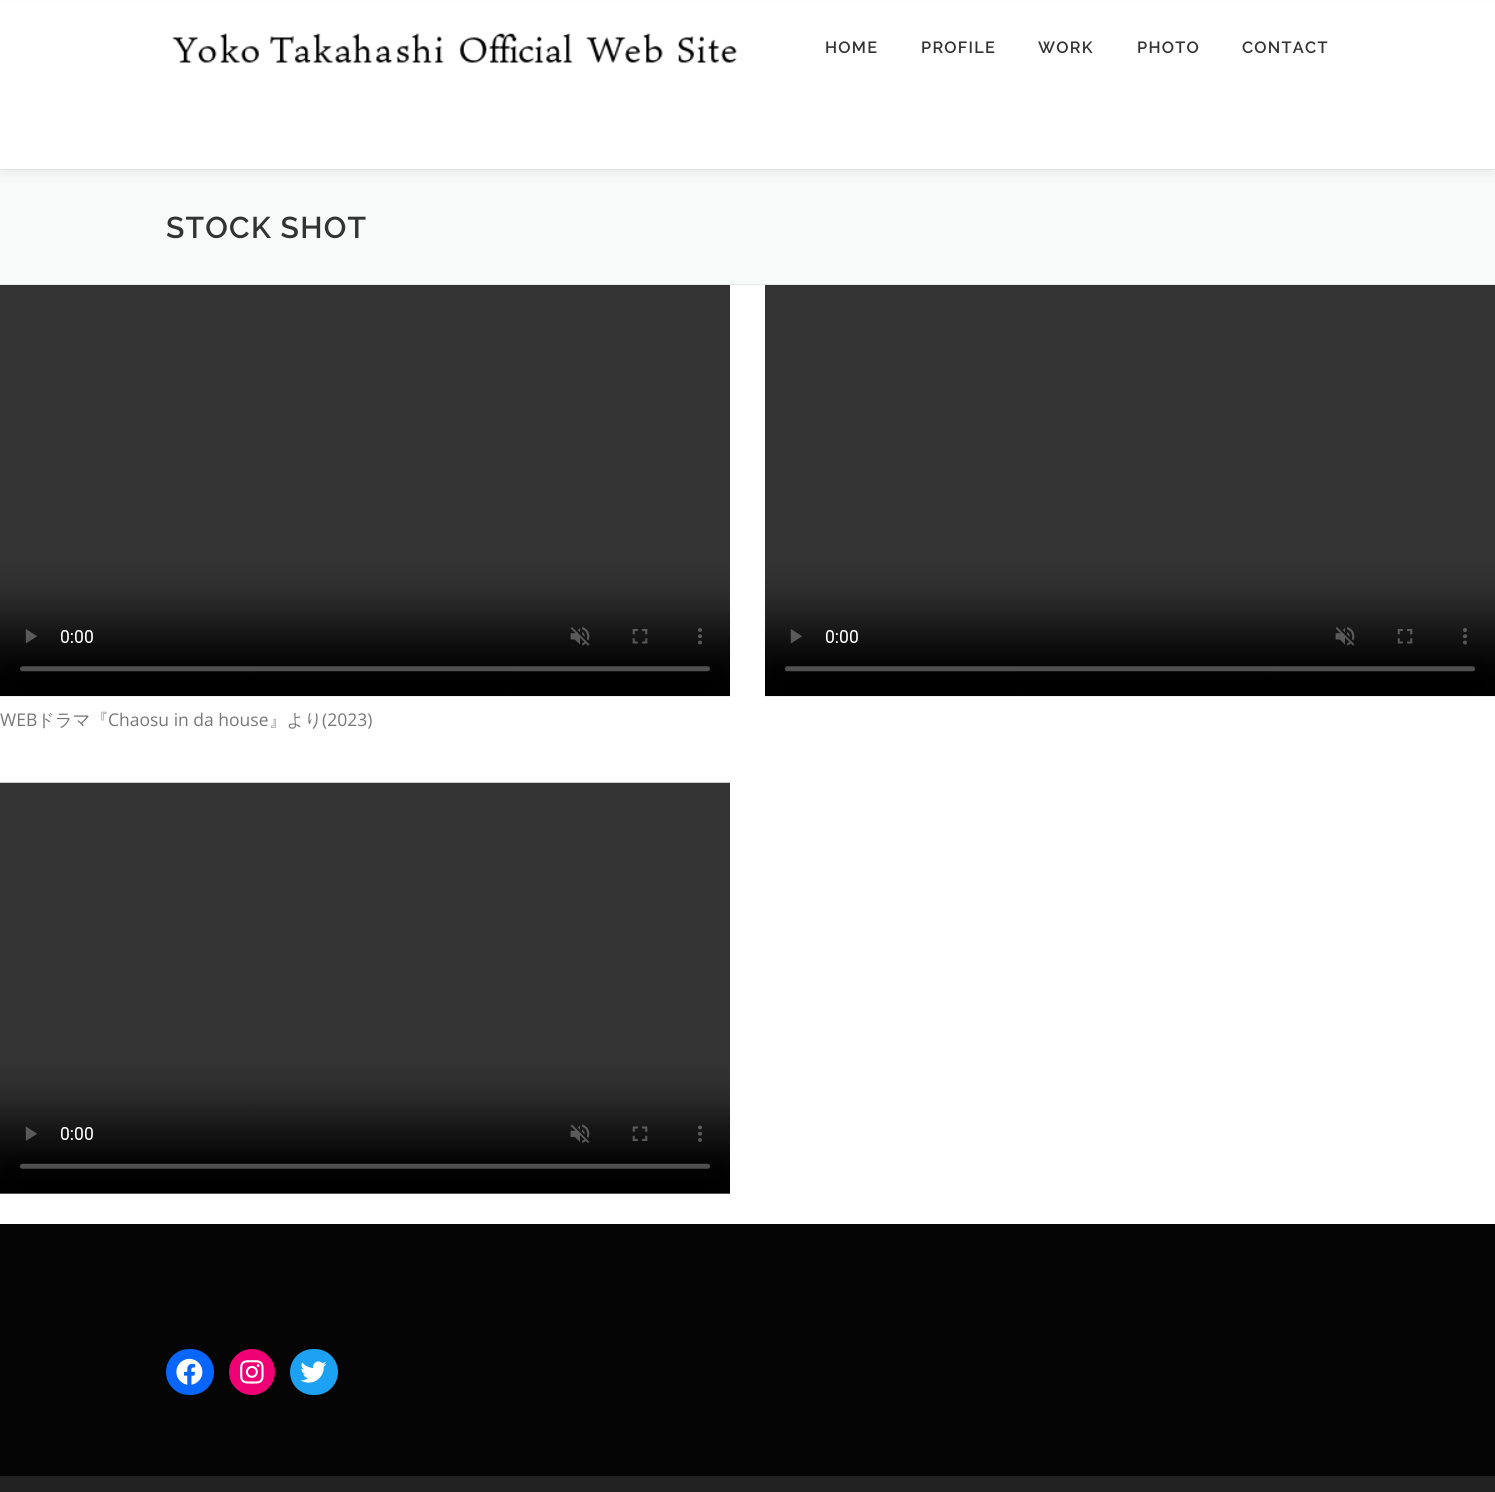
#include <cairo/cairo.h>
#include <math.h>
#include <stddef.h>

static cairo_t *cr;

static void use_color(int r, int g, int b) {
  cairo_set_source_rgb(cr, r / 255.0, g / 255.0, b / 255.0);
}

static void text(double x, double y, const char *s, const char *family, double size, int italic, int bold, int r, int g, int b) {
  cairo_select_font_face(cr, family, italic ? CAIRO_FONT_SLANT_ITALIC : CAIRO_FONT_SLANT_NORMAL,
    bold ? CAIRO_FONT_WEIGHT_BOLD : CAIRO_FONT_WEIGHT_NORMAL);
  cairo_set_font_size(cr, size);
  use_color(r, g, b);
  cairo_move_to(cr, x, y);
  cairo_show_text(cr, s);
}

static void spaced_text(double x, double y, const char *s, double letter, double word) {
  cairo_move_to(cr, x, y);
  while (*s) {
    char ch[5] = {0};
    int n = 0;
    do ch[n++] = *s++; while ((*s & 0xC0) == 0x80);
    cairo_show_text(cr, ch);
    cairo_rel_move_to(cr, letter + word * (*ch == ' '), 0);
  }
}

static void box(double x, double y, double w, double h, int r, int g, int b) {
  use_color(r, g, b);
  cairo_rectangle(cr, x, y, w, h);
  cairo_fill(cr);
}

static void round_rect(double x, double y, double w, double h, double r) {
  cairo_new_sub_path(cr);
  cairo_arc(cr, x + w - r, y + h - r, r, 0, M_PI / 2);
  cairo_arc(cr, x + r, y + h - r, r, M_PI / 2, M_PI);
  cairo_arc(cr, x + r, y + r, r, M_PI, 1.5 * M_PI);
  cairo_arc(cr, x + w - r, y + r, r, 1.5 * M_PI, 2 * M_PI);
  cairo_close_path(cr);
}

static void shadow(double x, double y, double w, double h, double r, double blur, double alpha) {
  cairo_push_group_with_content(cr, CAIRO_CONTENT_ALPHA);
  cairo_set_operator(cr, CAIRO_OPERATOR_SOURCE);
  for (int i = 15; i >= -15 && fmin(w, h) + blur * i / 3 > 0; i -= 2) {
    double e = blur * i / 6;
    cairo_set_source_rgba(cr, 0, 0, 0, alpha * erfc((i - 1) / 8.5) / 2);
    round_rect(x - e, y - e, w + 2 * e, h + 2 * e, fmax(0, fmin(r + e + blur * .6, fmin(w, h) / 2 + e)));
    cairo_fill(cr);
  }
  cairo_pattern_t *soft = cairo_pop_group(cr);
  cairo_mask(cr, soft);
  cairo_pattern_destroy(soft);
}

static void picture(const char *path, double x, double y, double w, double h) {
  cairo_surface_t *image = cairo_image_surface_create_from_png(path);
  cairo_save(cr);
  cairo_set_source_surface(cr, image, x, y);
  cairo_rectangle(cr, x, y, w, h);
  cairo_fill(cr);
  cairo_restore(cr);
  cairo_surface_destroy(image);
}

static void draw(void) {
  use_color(255, 255, 255);
  cairo_paint(cr);
  box(0, 170, 1495, 114, 248, 249, 249);
  box(0, 169, 1495, 1, 233, 233, 233);
  use_color(50, 50, 50);
  shadow(0, 6, 1495, 169, 0, 6, 0.06);
  box(0, 1, 1495, 168, 255, 255, 255);
  picture("img_01.png", 172, 33, 565, 30);
  box(0, 284, 1495, 1, 233, 233, 233);
  picture("img_02.png", 765, 285, 730, 412);
  picture("img_03.png", 0, 285, 730, 412);
  picture("img_04.png", 0, 782, 730, 412);
  box(0, 1224, 1495, 252, 5, 5, 5);
  use_color(8, 102, 255);
  round_rect(166, 1349, 48, 46, 23);
  cairo_fill(cr);
  picture("img_05.png", 176, 1358, 27, 27);
  use_color(240, 0, 117);
  cairo_arc(cr, 252, 1372, 23, 0, 2 * M_PI);
  cairo_fill(cr);
  picture("img_06.png", 240, 1360, 24, 24);
  use_color(29, 161, 242);
  round_rect(290, 1349, 48, 46, 23);
  cairo_fill(cr);
  picture("img_07.png", 300, 1361, 27, 22);
  box(0, 1476, 1495, 16, 34, 34, 34);
  cairo_select_font_face(cr, "Raleway SemiBold", CAIRO_FONT_SLANT_NORMAL, CAIRO_FONT_WEIGHT_NORMAL);
  cairo_set_font_size(cr, 16.25);
  use_color(51, 51, 51);
  spaced_text(825, 53, "HOME", 1.25, 0);
  spaced_text(921, 53, "PROFILE", 1.25, 0);
  spaced_text(1038, 53, "WORK", 1.25, 0);
  spaced_text(1137, 53, "PHOTO", 1.25, 0);
  spaced_text(1242, 53, "CONTACT", 1.25, 0);
  cairo_set_font_size(cr, 30);
  spaced_text(166, 238, "STOCK SHOT", 1.25, 0);
  text(0, 726, "WEB", "Open Sans", 17.5, 0, 0, 119, 119, 119);
  text(37, 726, "ドラマ『", "WenQuanYi Zen Hei Medium", 17.5, 0, 0, 119, 119, 119);
  text(108, 726, "Chaosu in da house", "Open Sans", 17.5, 0, 0, 119, 119, 119);
  text(269, 726, "』より", "WenQuanYi Zen Hei Medium", 17.5, 0, 0, 119, 119, 119);
  text(322, 726, "(2023)", "Open Sans", 17.5, 0, 0, 119, 119, 119);
}

int main(void) {
  cairo_surface_t *surface = cairo_image_surface_create(CAIRO_FORMAT_RGB24, 1495, 1492);
  cr = cairo_create(surface);
  cairo_font_options_t *options = cairo_font_options_create();
  cairo_font_options_set_hint_metrics(options, CAIRO_HINT_METRICS_OFF);
  cairo_font_options_set_hint_style(options, CAIRO_HINT_STYLE_NONE);
  cairo_set_font_options(cr, options);
  cairo_set_miter_limit(cr, 4);
  draw();
  cairo_surface_write_to_png(surface, "out.png");
  cairo_font_options_destroy(options);
  cairo_destroy(cr);
  cairo_surface_destroy(surface);
  return 0;
}
